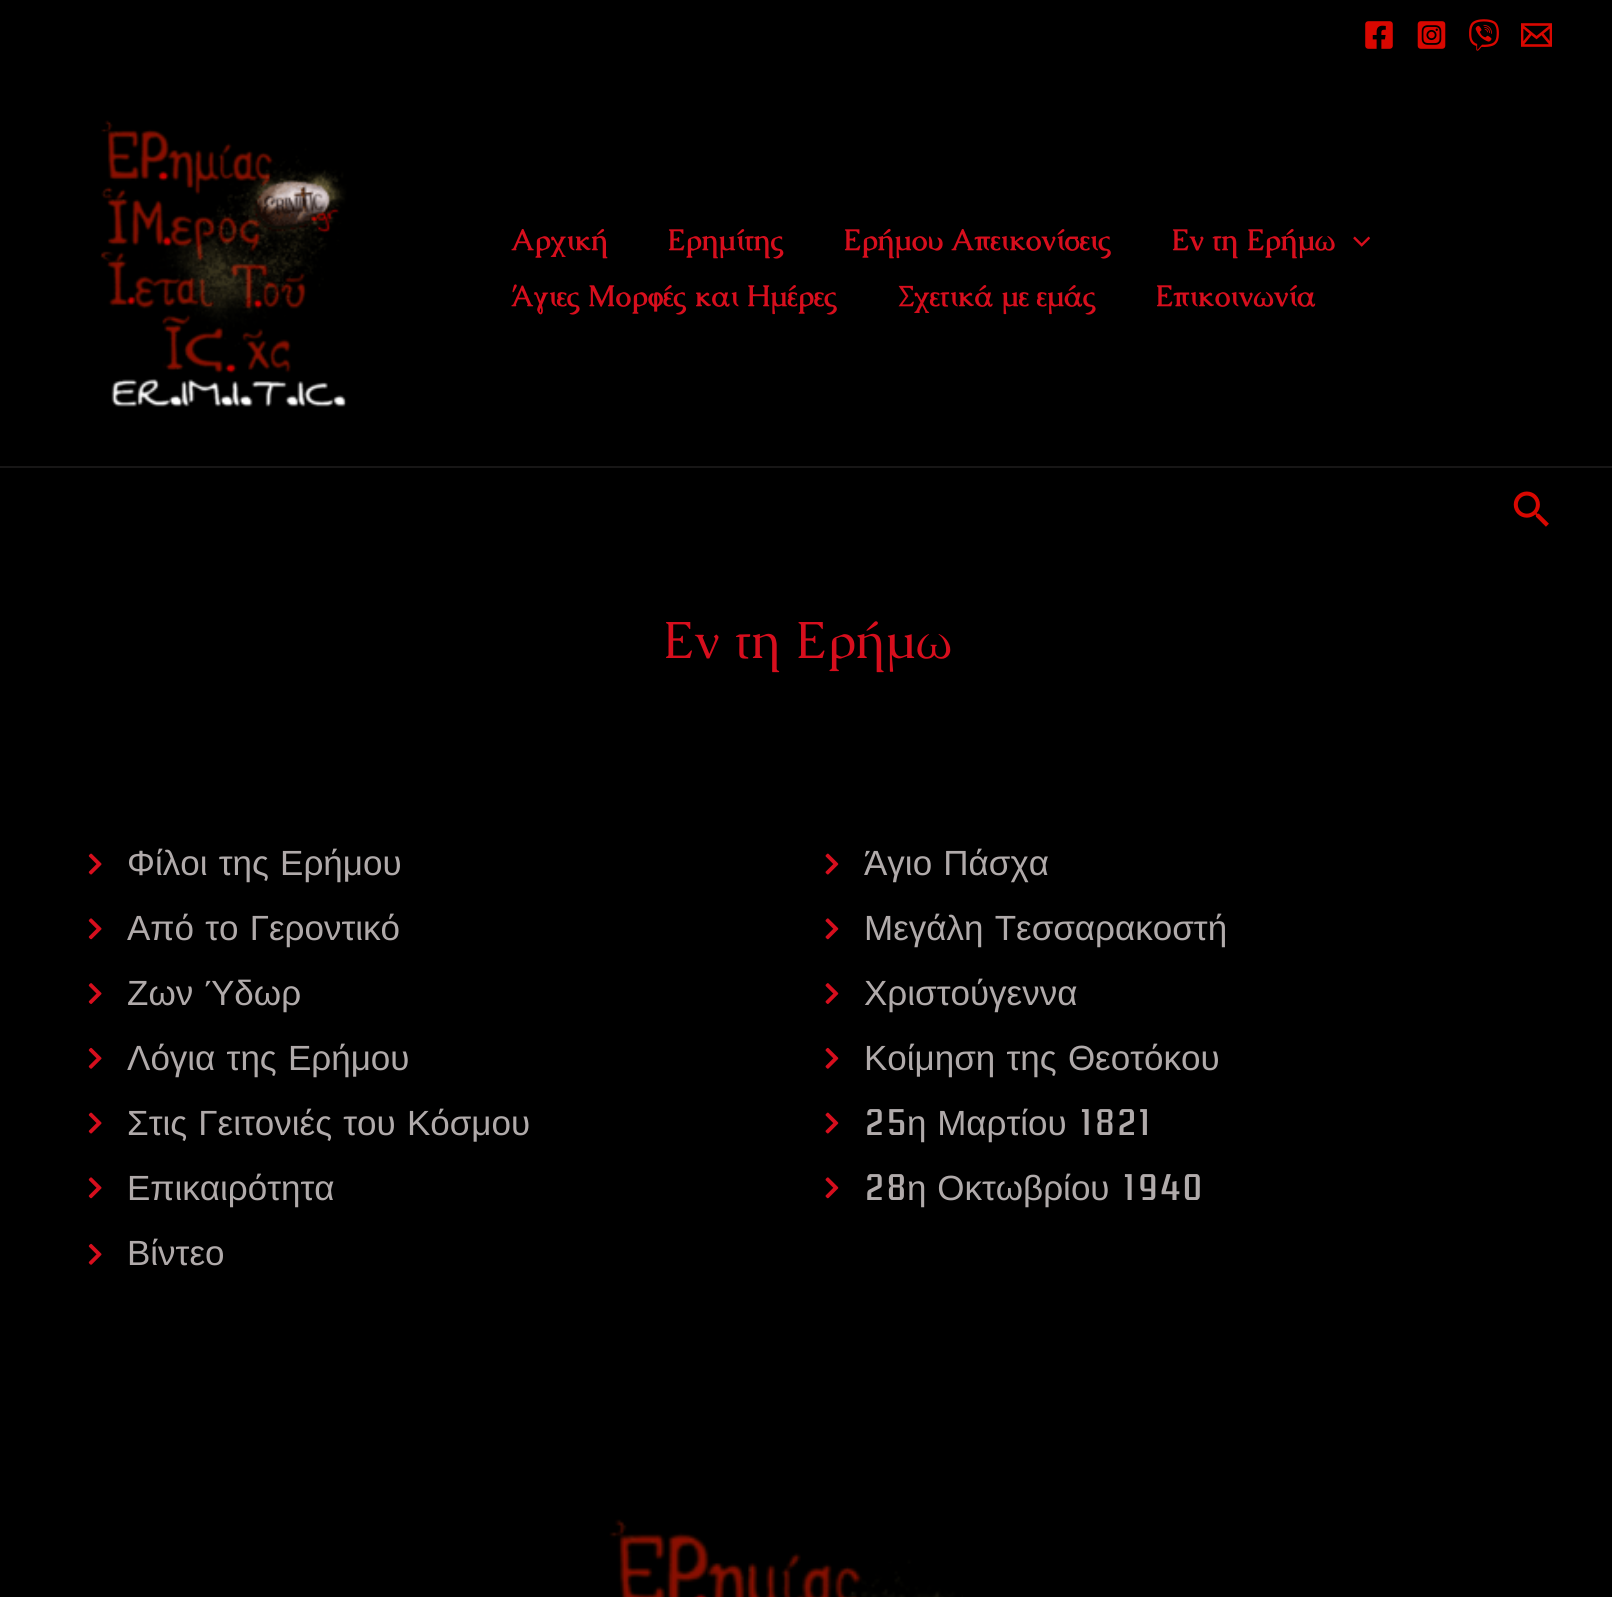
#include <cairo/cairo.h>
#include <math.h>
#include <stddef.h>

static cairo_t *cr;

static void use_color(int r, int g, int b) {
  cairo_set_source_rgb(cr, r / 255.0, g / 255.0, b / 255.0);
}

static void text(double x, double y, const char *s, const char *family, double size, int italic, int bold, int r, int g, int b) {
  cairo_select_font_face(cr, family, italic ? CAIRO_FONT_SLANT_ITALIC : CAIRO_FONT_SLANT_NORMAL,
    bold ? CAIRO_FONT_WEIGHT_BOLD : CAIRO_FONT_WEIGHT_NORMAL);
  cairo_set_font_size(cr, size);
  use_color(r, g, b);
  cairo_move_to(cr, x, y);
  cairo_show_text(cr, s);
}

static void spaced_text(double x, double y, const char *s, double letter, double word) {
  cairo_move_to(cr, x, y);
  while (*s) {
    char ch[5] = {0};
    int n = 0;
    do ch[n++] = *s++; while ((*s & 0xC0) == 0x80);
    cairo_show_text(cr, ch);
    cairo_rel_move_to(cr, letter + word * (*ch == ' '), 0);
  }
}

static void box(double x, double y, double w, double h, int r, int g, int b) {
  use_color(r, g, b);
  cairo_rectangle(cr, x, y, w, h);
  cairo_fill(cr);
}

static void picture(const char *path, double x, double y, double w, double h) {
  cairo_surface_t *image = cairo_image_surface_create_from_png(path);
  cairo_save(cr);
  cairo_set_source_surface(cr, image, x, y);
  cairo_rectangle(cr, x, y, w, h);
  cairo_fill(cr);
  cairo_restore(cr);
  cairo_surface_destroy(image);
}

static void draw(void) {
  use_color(0, 0, 0);
  cairo_paint(cr);
  picture("img_01.png", 1365, 21, 28, 28);
  picture("img_02.png", 1417, 21, 29, 28);
  picture("img_03.png", 1469, 19, 30, 32);
  picture("img_04.png", 1521, 23, 31, 24);
  box(0, 466, 1612, 2, 23, 22, 22);
  picture("img_05.png", 100, 120, 247, 287);
  picture("img_06.png", 1353, 236, 17, 11);
  picture("img_07.png", 1513, 491, 36, 36);
  picture("img_08.png", 88, 853, 14, 22);
  picture("img_09.png", 88, 918, 14, 22);
  picture("img_10.png", 88, 983, 14, 21);
  picture("img_11.png", 88, 1047, 14, 22);
  picture("img_08.png", 88, 1112, 14, 22);
  picture("img_09.png", 88, 1177, 14, 22);
  picture("img_11.png", 88, 1243, 14, 22);
  picture("img_12.png", 825, 853, 14, 22);
  picture("img_13.png", 825, 918, 14, 22);
  picture("img_14.png", 825, 983, 14, 21);
  picture("img_15.png", 825, 1047, 14, 22);
  picture("img_12.png", 825, 1112, 14, 22);
  picture("img_13.png", 825, 1177, 14, 22);
  picture("img_16.png", 609, 1519, 354, 78);
  text(511, 250, "Αρχική", "Caudex", 29.75, 0, 1, 215, 14, 29);
  text(667, 250, "Ερημίτης", "Caudex", 29.75, 0, 1, 215, 14, 29);
  text(843, 250, "Ερήμου Απεικονίσεις", "Caudex", 29.75, 0, 1, 215, 14, 29);
  text(1171, 250, "Εν τη Ερήμω", "Caudex", 29.75, 0, 1, 215, 14, 29);
  text(511, 306, "Άγιες Μορφές και Ημέρες", "Caudex", 29.75, 0, 1, 215, 14, 29);
  text(897, 306, "Σχετικά με εμάς", "Caudex", 29.75, 0, 1, 215, 14, 29);
  text(1155, 306, "Επικοινωνία", "Caudex", 29.75, 0, 1, 215, 14, 29);
  text(662, 658, "Εν τη Ερήμω", "Caudex", 52.5, 0, 0, 215, 14, 29);
  cairo_select_font_face(cr, "Liberation Sans", CAIRO_FONT_SLANT_NORMAL, CAIRO_FONT_WEIGHT_NORMAL);
  cairo_set_font_size(cr, 35);
  use_color(176, 170, 170);
  spaced_text(127, 875, "Φίλοι της Ερήμου", 0, 1.5);
  spaced_text(127, 940, "Από το Γεροντικό", 0, 1.5);
  spaced_text(127, 1005, "Ζων Ύδωρ", 0, 1.5);
  spaced_text(127, 1070, "Λόγια της Ερήμου", 0, 1.5);
  spaced_text(127, 1135, "Στις Γειτονιές του Κόσμου", 0, 1.5);
  text(127, 1200, "Επικαιρότητα", "Liberation Sans", 35, 0, 0, 176, 170, 170);
  text(127, 1265, "Βίντεο", "Liberation Sans", 35, 0, 0, 176, 170, 170);
  spaced_text(864, 875, "Άγιο Πάσχα", 0, 1.5);
  spaced_text(864, 940, "Μεγάλη Τεσσαρακοστή", 0, 1.5);
  text(864, 1005, "Χριστούγεννα", "Liberation Sans", 35, 0, 0, 176, 170, 170);
  spaced_text(864, 1070, "Κοίμηση της Θεοτόκου", 0, 1.5);
  text(864, 1135, "25", "Atomic Age", 35, 0, 0, 176, 170, 170);
  cairo_select_font_face(cr, "Liberation Sans", CAIRO_FONT_SLANT_NORMAL, CAIRO_FONT_WEIGHT_NORMAL);
  spaced_text(907, 1135, "η Μαρτίου", 0, 1);
  text(1079, 1135, "1821", "Atomic Age", 35, 0, 0, 176, 170, 170);
  text(864, 1200, "28", "Atomic Age", 35, 0, 0, 176, 170, 170);
  cairo_select_font_face(cr, "Liberation Sans", CAIRO_FONT_SLANT_NORMAL, CAIRO_FONT_WEIGHT_NORMAL);
  spaced_text(907, 1200, "η Οκτωβρίου", 0, 1);
  text(1122, 1200, "1940", "Atomic Age", 35, 0, 0, 176, 170, 170);
}

int main(void) {
  cairo_surface_t *surface = cairo_image_surface_create(CAIRO_FORMAT_RGB24, 1612, 1597);
  cr = cairo_create(surface);
  cairo_font_options_t *options = cairo_font_options_create();
  cairo_font_options_set_hint_metrics(options, CAIRO_HINT_METRICS_OFF);
  cairo_font_options_set_hint_style(options, CAIRO_HINT_STYLE_NONE);
  cairo_set_font_options(cr, options);
  cairo_set_miter_limit(cr, 4);
  draw();
  cairo_surface_write_to_png(surface, "out.png");
  cairo_font_options_destroy(options);
  cairo_destroy(cr);
  cairo_surface_destroy(surface);
  return 0;
}
